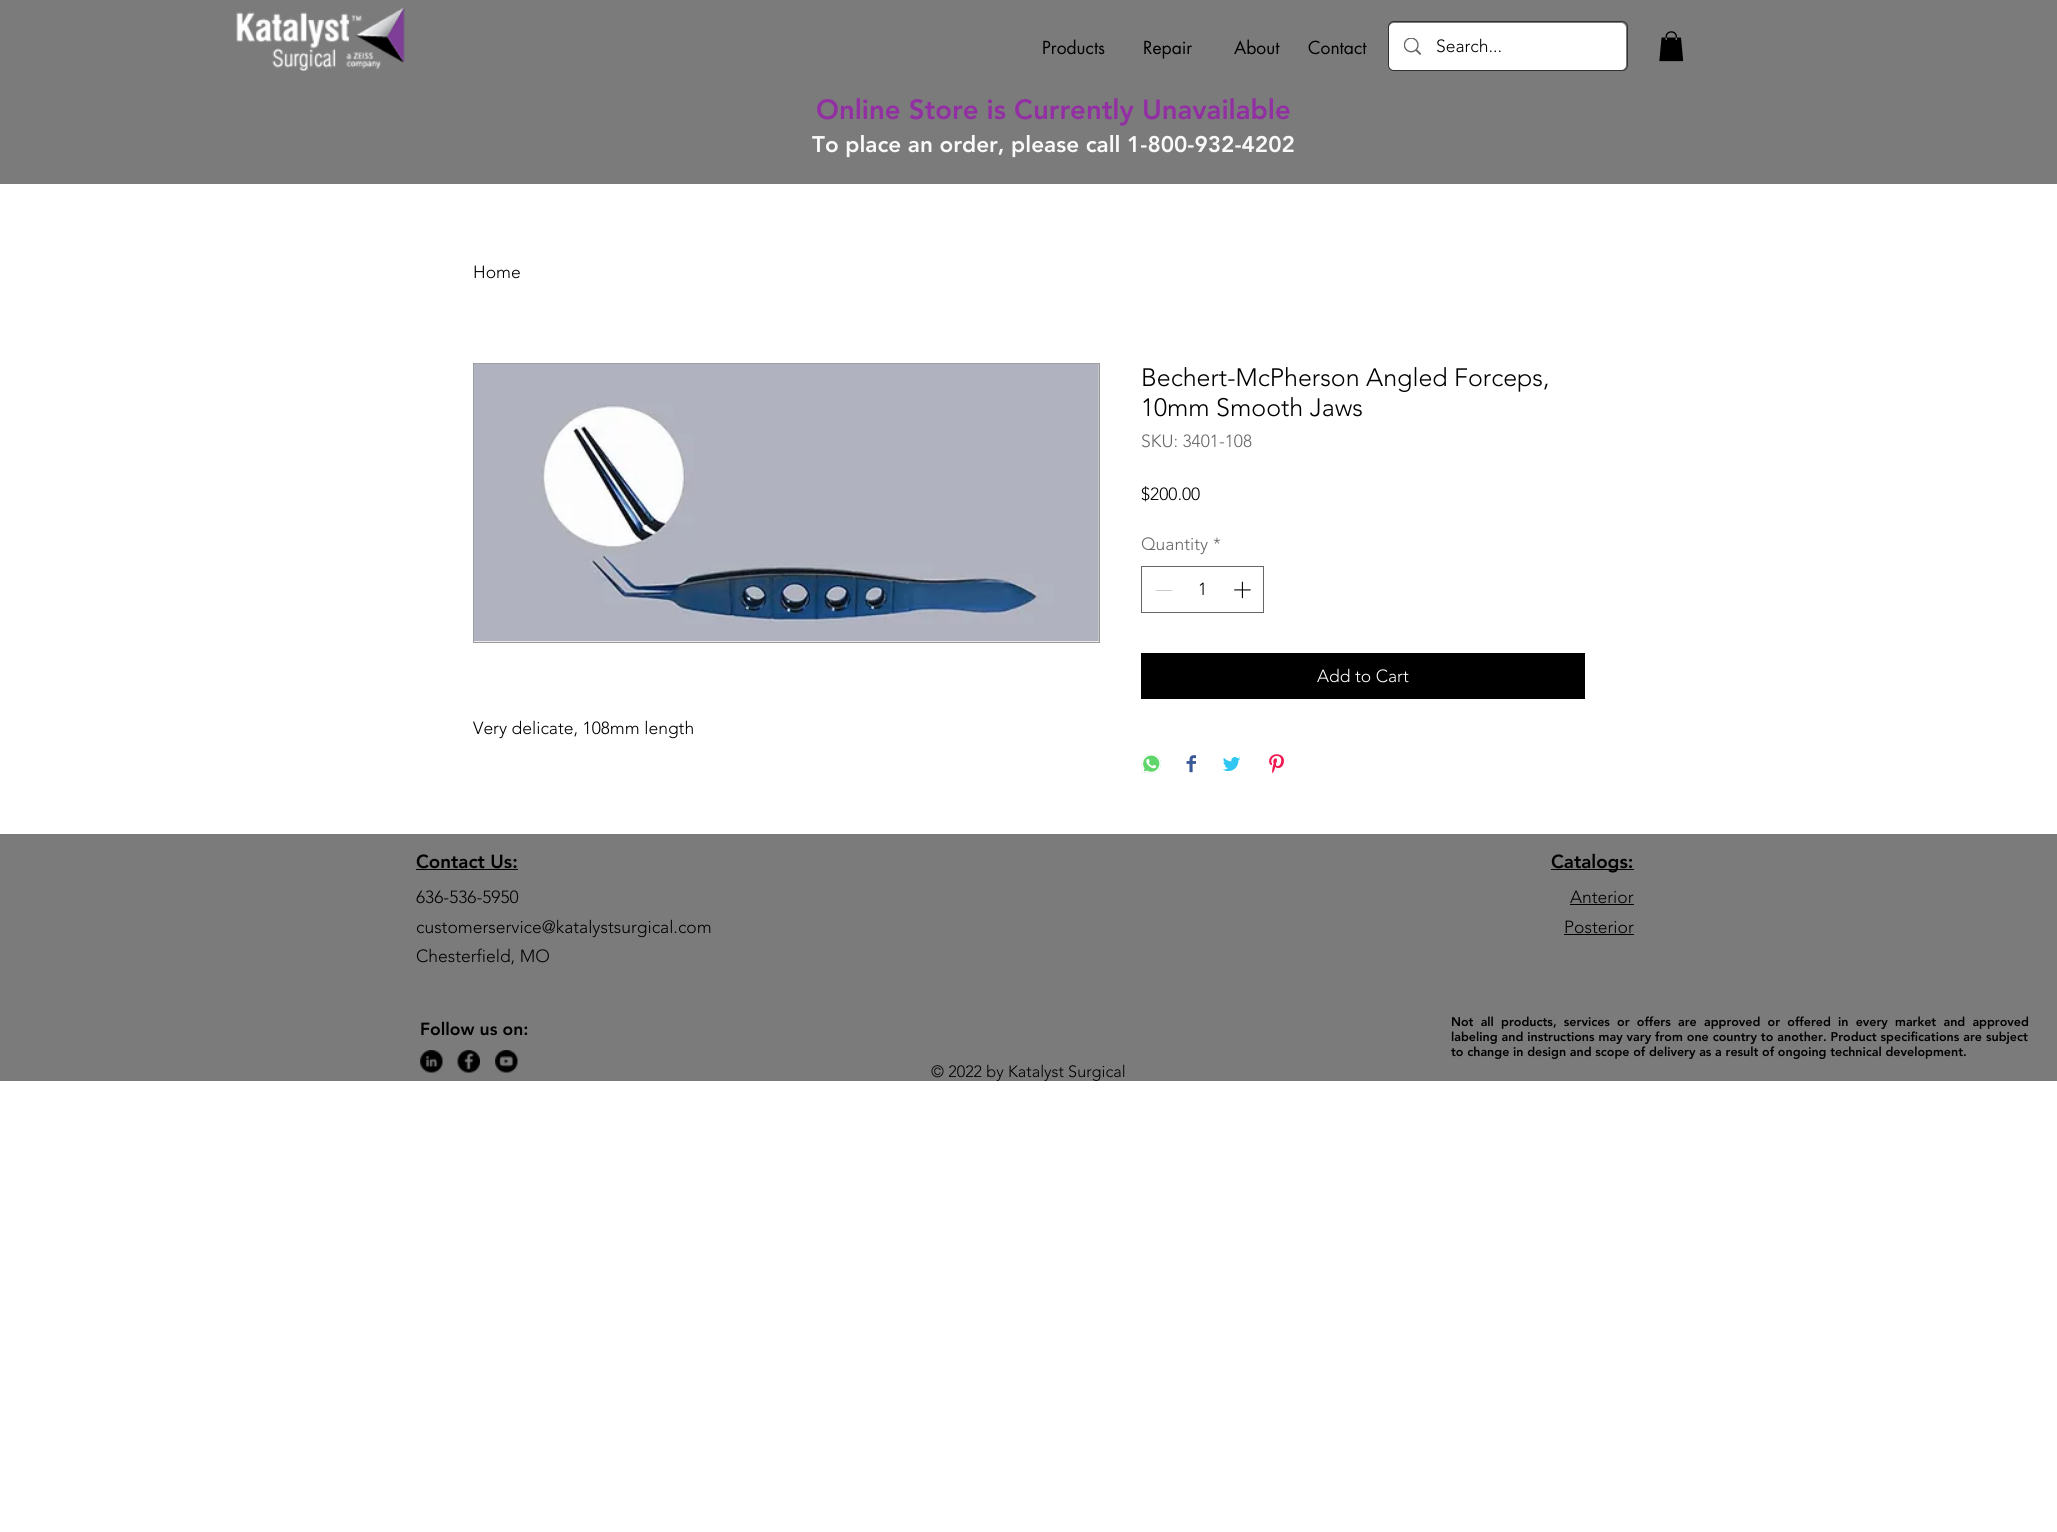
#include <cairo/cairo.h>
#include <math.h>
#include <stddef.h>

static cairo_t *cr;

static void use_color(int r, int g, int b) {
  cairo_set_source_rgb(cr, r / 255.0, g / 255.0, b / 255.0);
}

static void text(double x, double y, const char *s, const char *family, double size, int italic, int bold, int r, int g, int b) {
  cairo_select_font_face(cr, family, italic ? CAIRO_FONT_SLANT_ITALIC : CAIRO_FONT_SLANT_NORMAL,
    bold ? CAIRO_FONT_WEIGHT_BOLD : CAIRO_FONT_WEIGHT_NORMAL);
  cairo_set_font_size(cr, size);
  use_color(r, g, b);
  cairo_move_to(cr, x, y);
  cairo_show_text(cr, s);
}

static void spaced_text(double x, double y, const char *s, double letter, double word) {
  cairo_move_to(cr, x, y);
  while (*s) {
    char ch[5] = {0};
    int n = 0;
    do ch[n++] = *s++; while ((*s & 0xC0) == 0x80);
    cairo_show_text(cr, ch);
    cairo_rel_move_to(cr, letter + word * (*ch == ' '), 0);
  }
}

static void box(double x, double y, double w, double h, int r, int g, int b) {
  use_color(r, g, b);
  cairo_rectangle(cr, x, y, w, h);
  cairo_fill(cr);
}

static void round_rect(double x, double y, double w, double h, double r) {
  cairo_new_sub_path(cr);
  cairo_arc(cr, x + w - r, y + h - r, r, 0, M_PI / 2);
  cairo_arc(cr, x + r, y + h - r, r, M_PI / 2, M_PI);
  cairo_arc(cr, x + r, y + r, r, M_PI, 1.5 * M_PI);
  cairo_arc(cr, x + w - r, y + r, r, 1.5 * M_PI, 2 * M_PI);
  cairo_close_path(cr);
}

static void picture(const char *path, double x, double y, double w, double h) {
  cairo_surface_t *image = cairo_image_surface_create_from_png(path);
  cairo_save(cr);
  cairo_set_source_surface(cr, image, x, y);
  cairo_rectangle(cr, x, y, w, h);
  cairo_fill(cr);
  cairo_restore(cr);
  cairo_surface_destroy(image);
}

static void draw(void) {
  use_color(255, 255, 255);
  cairo_paint(cr);
  box(0, 0, 2057, 184, 123, 123, 123);
  picture("img_01.png", 236, 7, 169, 64);
  round_rect(1388.5, 21.5, 239, 49, 5.5);
  use_color(49, 49, 49);
  cairo_set_line_width(cr, 1);
  cairo_stroke(cr);
  use_color(255, 255, 255);
  round_rect(1389, 23, 237, 47, 5);
  cairo_fill(cr);
  picture("img_02.png", 1404, 38, 17, 17);
  picture("img_03.png", 1659, 31, 25, 31);
  cairo_rectangle(cr, 1141.5, 566.5, 122, 46);
  use_color(102, 102, 102);
  cairo_stroke(cr);
  box(1156, 590, 16, 1, 199, 199, 199);
  picture("img_04.png", 1234, 581, 17, 18);
  box(1141, 653, 444, 46, 0, 0, 0);
  picture("img_05.png", 1141, 754, 20, 20);
  picture("img_06.png", 1186, 755, 10, 18);
  picture("img_07.png", 1222, 757, 19, 15);
  picture("img_08.png", 1269, 754, 15, 20);
  cairo_rectangle(cr, 473.5, 363.5, 626, 279);
  use_color(153, 153, 153);
  cairo_stroke(cr);
  picture("img_09.png", 473, 363, 626, 279);
  box(0, 834, 2057, 247, 123, 123, 123);
  box(416, 869, 102, 1, 0, 0, 0);
  box(1551, 869, 83, 1, 0, 0, 0);
  box(1570, 904, 64, 1, 0, 0, 0);
  box(1564, 934, 70, 1, 0, 0, 0);
  picture("img_10.png", 420, 1050, 23, 23);
  picture("img_11.png", 457, 1050, 23, 23);
  picture("img_12.png", 495, 1050, 23, 23);
  text(1436, 52, "Search...", "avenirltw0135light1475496 Light", 17.5, 0, 0, 0, 0, 0);
  text(816, 119, "Online Store is Currently Unavailable", "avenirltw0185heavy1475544 Black", 27.5, 0, 0, 146, 47, 163);
  text(812, 152, "To place an order, please call 1-800-932-4202", "avenirltw0185heavy1475544 Black", 22.5, 0, 0, 249, 249, 249);
  text(1042, 54, "Products", "futura", 17.5, 0, 0, 0, 0, 0);
  text(1143, 54, "Repair", "futura", 17.5, 0, 0, 0, 0, 0);
  text(1234, 54, "About", "futura", 17.5, 0, 0, 0, 0, 0);
  text(1308, 54, "Contact", "futura", 17.5, 0, 0, 0, 0, 0);
  text(473, 278, "Home", "avenirltw0135light1475496 Light", 17.5, 0, 0, 0, 0, 0);
  text(1141, 386, "Bechert-McPherson Angled Forceps,", "avenirltw0135light1475496 Light", 25, 0, 0, 0, 0, 0);
  text(1141, 416, "10mm Smooth Jaws", "avenirltw0135light1475496 Light", 25, 0, 0, 0, 0, 0);
  text(1141, 447, "SKU: 3401-108", "avenirltw0135light1475496 Light", 17.5, 0, 0, 102, 102, 102);
  text(1141, 500, "$200.00", "avenirltw0135light1475496 Light", 17.5, 0, 0, 0, 0, 0);
  text(1141, 550, "Quantity", "avenirltw0135light1475496 Light", 17.5, 0, 0, 102, 102, 102);
  text(1213, 550, "*", "avenirltw0135light1475496 Light", 17.5, 0, 0, 102, 102, 102);
  text(1198, 595, "1", "avenirltw0135light1475496 Light", 17.5, 0, 0, 0, 0, 0);
  text(1317, 682, "Add to Cart", "avenirltw0135light1475496 Light", 17.5, 0, 0, 255, 255, 255);
  text(473, 734, "Very delicate, 108mm length", "avenirltw0135light1475496 Light", 17.5, 0, 0, 0, 0, 0);
  text(416, 868, "Contact Us:", "avenirltw0185heavy1475544 Black", 18.75, 0, 0, 0, 0, 0);
  text(1551, 868, "Catalogs:", "avenirltw0185heavy1475544 Black", 18.75, 0, 0, 0, 0, 0);
  text(416, 903, "636-536-5950", "avenirltw0135light1475496 Light", 17.5, 0, 0, 0, 0, 0);
  text(416, 933, "customerservice@katalystsurgical.com", "avenirltw0135light1475496 Light", 17.5, 0, 0, 0, 0, 0);
  text(416, 962, "Chesterfield, MO", "avenirltw0135light1475496 Light", 17.5, 0, 0, 0, 0, 0);
  text(1570, 903, "Anterior", "avenirltw0135light1475496 Light", 17.5, 0, 0, 0, 0, 0);
  text(1564, 933, "Posterior", "avenirltw0135light1475496 Light", 17.5, 0, 0, 0, 0, 0);
  text(420, 1035, "Follow us on:", "avenirltw0185heavy1475544 Black", 17.5, 0, 0, 0, 0, 0);
  cairo_set_font_size(cr, 12.5);
  spaced_text(1451, 1026, "Not all products, services or offers are approved or offered in every market and approved", 0, 3.5);
  spaced_text(1451, 1041, "labeling and instructions may vary from one country to another. Product specifications are subject", 0, 0.25);
  text(1451, 1056, "to change in design and scope of delivery as a result of ongoing technical development.", "avenirltw0185heavy1475544 Black", 12.5, 0, 0, 0, 0, 0);
  text(931, 1077, "© 2022 by Katalyst Surgical", "avenirltw0135light1475496 Light", 16.25, 0, 0, 0, 0, 0);
}

int main(void) {
  cairo_surface_t *surface = cairo_image_surface_create(CAIRO_FORMAT_RGB24, 2057, 1532);
  cr = cairo_create(surface);
  cairo_font_options_t *options = cairo_font_options_create();
  cairo_font_options_set_hint_metrics(options, CAIRO_HINT_METRICS_OFF);
  cairo_font_options_set_hint_style(options, CAIRO_HINT_STYLE_NONE);
  cairo_set_font_options(cr, options);
  cairo_set_miter_limit(cr, 4);
  draw();
  cairo_surface_write_to_png(surface, "out.png");
  cairo_font_options_destroy(options);
  cairo_destroy(cr);
  cairo_surface_destroy(surface);
  return 0;
}
